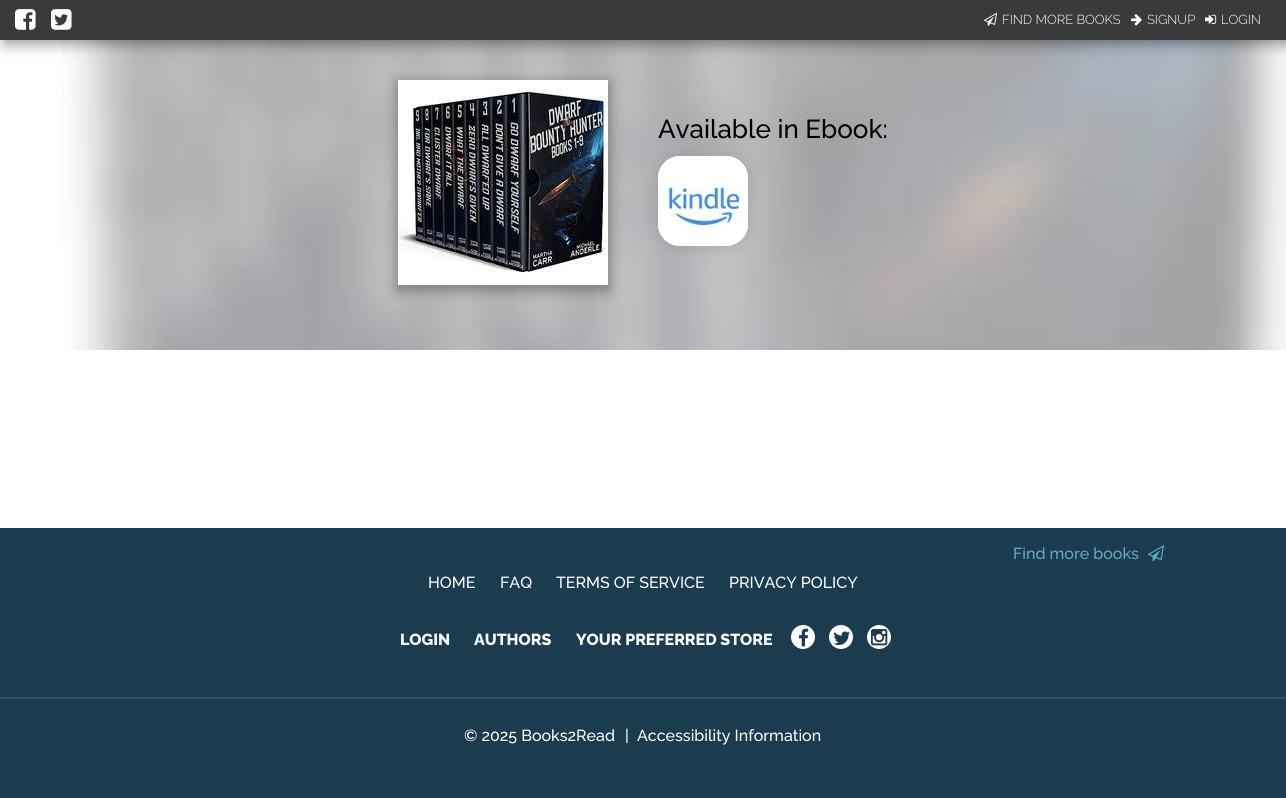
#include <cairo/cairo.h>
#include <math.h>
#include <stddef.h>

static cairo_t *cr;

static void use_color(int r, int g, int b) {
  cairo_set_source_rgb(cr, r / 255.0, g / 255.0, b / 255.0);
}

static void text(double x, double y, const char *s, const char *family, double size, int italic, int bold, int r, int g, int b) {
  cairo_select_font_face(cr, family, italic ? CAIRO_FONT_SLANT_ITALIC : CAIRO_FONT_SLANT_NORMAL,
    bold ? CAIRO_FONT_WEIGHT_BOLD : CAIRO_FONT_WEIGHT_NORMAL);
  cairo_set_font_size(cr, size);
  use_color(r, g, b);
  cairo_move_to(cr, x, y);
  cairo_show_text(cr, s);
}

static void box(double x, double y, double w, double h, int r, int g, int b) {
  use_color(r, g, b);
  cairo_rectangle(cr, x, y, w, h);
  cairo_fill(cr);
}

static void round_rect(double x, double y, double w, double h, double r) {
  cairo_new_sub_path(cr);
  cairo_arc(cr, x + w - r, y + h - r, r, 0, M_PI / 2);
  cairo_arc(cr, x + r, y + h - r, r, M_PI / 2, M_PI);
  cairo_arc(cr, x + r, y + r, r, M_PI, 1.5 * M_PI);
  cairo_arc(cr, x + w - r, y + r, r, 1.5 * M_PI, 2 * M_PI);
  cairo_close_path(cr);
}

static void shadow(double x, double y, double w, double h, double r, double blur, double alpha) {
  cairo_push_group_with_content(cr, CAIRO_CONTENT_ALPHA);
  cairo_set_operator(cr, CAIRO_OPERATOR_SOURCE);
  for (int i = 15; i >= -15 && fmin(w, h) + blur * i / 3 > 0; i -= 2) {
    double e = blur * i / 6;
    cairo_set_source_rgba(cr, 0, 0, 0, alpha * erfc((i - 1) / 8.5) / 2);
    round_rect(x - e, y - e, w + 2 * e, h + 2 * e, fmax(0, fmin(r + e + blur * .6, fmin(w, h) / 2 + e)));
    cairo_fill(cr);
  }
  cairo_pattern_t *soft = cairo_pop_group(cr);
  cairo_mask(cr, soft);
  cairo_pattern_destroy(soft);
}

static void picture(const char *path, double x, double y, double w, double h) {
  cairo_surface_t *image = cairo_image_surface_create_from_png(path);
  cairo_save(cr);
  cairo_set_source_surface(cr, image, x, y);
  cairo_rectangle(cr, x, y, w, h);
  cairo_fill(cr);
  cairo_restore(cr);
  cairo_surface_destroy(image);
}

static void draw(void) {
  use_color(255, 255, 255);
  cairo_paint(cr);
  picture("img_01.png", 62, 40, 1224, 310);
  use_color(0, 0, 0);
  shadow(4, 4, 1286, 40, 0, 7, 0.4);
  box(0, 0, 1286, 40, 58, 58, 58);
  picture("img_02.png", 15, 9, 21, 21);
  picture("img_03.png", 51, 9, 21, 21);
  picture("img_04.png", 984, 12, 13, 14);
  picture("img_05.png", 1131, 14, 11, 12);
  picture("img_06.png", 1205, 14, 12, 10);
  use_color(0, 0, 0);
  shadow(396, 82, 214, 209, 0, 6, 0.3);
  picture("img_07.png", 398, 80, 210, 205);
  shadow(656, 156, 94, 94, 24, 6, 0.1);
  use_color(255, 255, 255);
  round_rect(658, 156, 90, 90, 22);
  cairo_fill(cr);
  picture("img_08.png", 658, 156, 90, 90);
  box(0, 528, 1286, 270, 27, 59, 79);
  picture("img_09.png", 1148, 545, 16, 17);
  use_color(255, 255, 255);
  cairo_arc(cr, 803, 637, 12, 0, 2 * M_PI);
  cairo_fill(cr);
  picture("img_10.png", 799, 628, 10, 19);
  cairo_arc(cr, 841, 637, 12, 0, 2 * M_PI);
  cairo_fill(cr);
  picture("img_11.png", 833, 631, 17, 14);
  cairo_arc(cr, 879, 637, 12, 0, 2 * M_PI);
  cairo_fill(cr);
  picture("img_12.png", 871, 629, 17, 17);
  box(0, 697, 1286, 2, 40, 87, 117);
  text(1002, 24, "FIND MORE BOOKS", "Raleway Light", 13, 0, 0, 255, 255, 255);
  text(1147, 24, "SIGNUP", "Raleway Light", 13, 0, 0, 255, 255, 255);
  text(1221, 24, "LOGIN", "Raleway Light", 13, 0, 0, 255, 255, 255);
  text(658, 138, "Available in Ebook:", "Raleway Medium", 26, 0, 0, 0, 0, 0);
  text(1013, 559, "Find more books", "Raleway Medium", 16, 0, 0, 99, 170, 197);
  text(428, 588, "HOME", "Raleway Medium", 16, 0, 0, 255, 255, 255);
  text(500, 588, "FAQ", "Raleway Medium", 16, 0, 0, 255, 255, 255);
  text(556, 588, "TERMS OF SERVICE", "Raleway Medium", 16, 0, 0, 255, 255, 255);
  text(729, 588, "PRIVACY POLICY", "Raleway Medium", 16, 0, 0, 255, 255, 255);
  text(400, 645, "LOGIN", "Raleway ExtraBold", 16, 0, 0, 255, 255, 255);
  text(474, 645, "AUTHORS", "Raleway ExtraBold", 16, 0, 0, 255, 255, 255);
  text(576, 645, "YOUR PREFERRED STORE", "Raleway ExtraBold", 16, 0, 0, 255, 255, 255);
  text(464, 741, "© 2025 Books2Read", "Raleway Medium", 16, 0, 0, 255, 255, 255);
  text(625, 741, "|", "Raleway Medium", 16, 0, 0, 255, 255, 255);
  text(637, 741, "Accessibility Information", "Raleway Medium", 16, 0, 0, 255, 255, 255);
}

int main(void) {
  cairo_surface_t *surface = cairo_image_surface_create(CAIRO_FORMAT_RGB24, 1286, 798);
  cr = cairo_create(surface);
  cairo_font_options_t *options = cairo_font_options_create();
  cairo_font_options_set_hint_metrics(options, CAIRO_HINT_METRICS_OFF);
  cairo_font_options_set_hint_style(options, CAIRO_HINT_STYLE_NONE);
  cairo_set_font_options(cr, options);
  cairo_set_miter_limit(cr, 4);
  draw();
  cairo_surface_write_to_png(surface, "out.png");
  cairo_font_options_destroy(options);
  cairo_destroy(cr);
  cairo_surface_destroy(surface);
  return 0;
}
